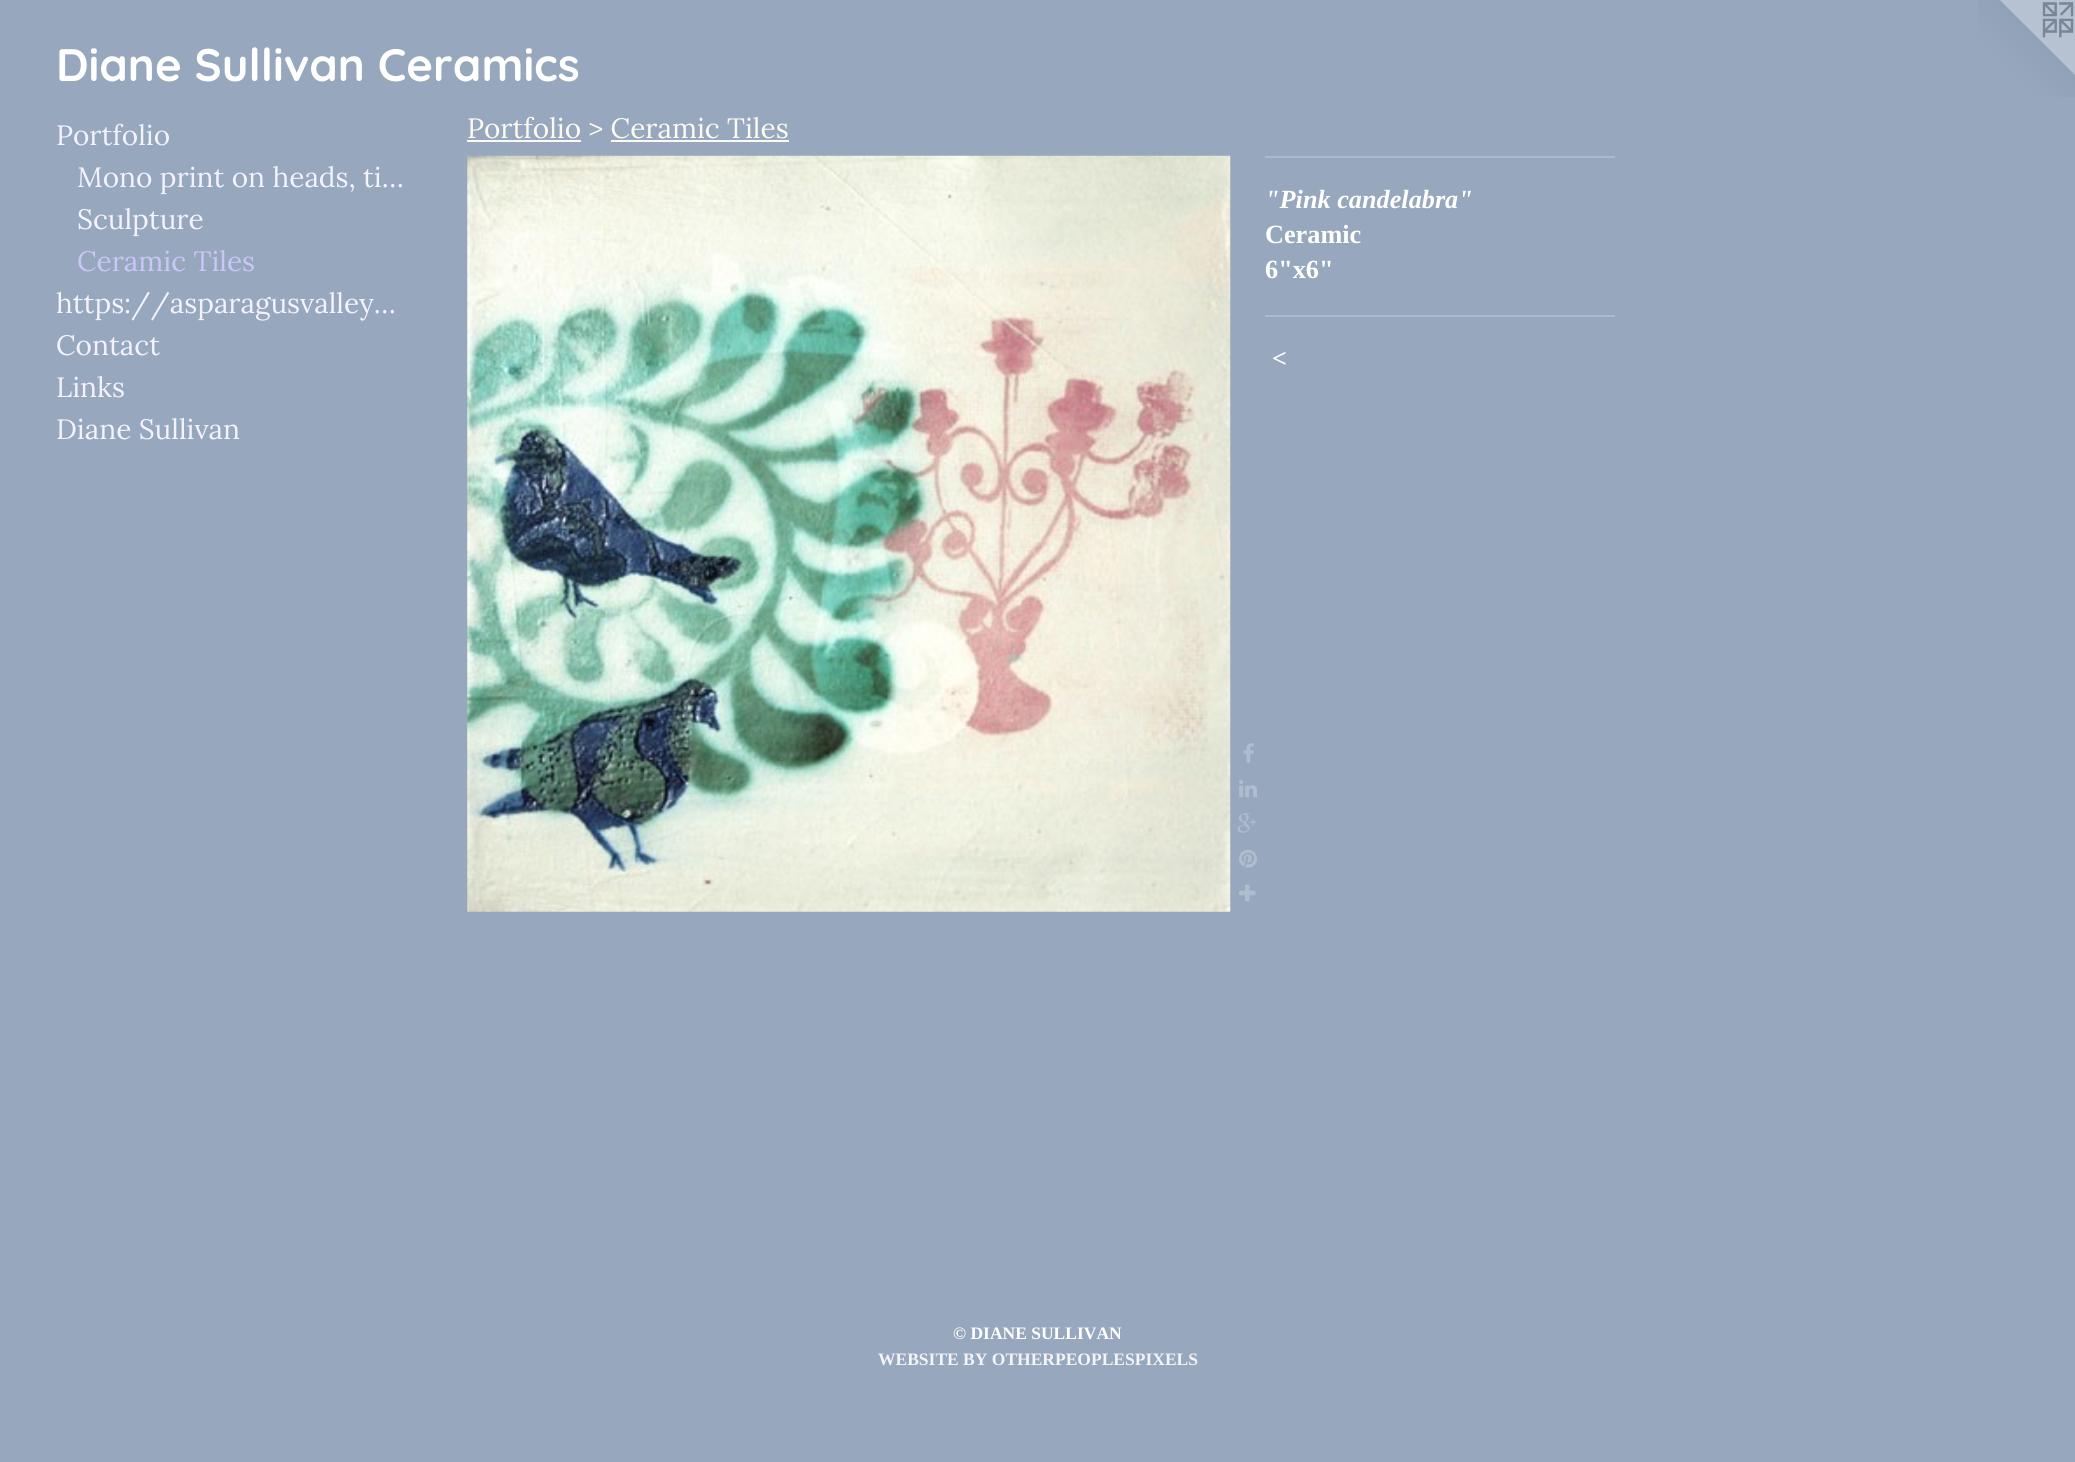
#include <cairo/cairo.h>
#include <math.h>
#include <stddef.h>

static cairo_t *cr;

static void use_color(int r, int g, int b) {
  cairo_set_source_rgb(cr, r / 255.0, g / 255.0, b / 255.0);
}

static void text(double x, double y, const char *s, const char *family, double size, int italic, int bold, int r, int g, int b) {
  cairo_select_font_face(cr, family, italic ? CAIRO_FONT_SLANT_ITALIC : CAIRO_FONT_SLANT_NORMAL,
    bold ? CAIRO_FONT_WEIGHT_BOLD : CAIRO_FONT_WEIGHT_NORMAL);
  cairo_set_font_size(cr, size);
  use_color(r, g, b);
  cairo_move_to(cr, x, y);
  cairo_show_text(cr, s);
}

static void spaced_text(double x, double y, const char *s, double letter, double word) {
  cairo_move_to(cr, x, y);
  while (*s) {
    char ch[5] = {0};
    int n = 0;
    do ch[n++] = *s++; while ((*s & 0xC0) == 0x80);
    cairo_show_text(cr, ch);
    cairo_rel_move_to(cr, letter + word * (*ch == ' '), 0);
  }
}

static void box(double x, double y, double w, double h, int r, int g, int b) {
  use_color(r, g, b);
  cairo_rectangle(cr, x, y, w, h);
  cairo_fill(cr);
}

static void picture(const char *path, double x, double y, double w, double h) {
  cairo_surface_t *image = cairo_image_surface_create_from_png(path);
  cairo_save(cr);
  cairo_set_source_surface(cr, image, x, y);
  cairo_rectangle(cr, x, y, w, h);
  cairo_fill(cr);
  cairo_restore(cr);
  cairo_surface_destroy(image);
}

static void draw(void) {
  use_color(150, 167, 190);
  cairo_paint(cr);
  picture("img_01.png", 1978, 0, 97, 97);
  box(467, 140, 114, 2, 253, 250, 242);
  box(611, 140, 178, 2, 253, 250, 242);
  picture("img_02.png", 467, 155, 764, 757);
  picture("img_03.png", 1243, 743, 11, 20);
  picture("img_04.png", 1239, 780, 18, 18);
  picture("img_05.png", 1237, 813, 19, 20);
  picture("img_06.png", 1239, 849, 18, 19);
  picture("img_07.png", 1239, 884, 17, 18);
  box(1265, 156, 350, 2, 171, 185, 203);
  box(1265, 315, 350, 2, 171, 185, 203);
  text(56, 81, "Diane Sullivan Ceramics", "Quicksand Light", 45.5, 0, 0, 255, 255, 255);
  text(56, 145, "Portfolio", "Lora", 28, 0, 0, 243, 242, 253);
  text(77, 187, "Mono print on heads, ti…", "Lora", 28, 0, 0, 243, 242, 253);
  text(77, 229, "Sculpture", "Lora", 28, 0, 0, 243, 242, 253);
  text(77, 271, "Ceramic Tiles", "Lora", 28, 0, 0, 202, 198, 246);
  text(56, 313, "https://asparagusvalley…", "Lora", 28, 0, 0, 243, 242, 253);
  text(56, 355, "Contact", "Lora", 28, 0, 0, 243, 242, 253);
  text(56, 397, "Links", "Lora", 28, 0, 0, 243, 242, 253);
  text(56, 439, "Diane Sullivan", "Lora", 28, 0, 0, 243, 242, 253);
  text(467, 138, "Portfolio > Ceramic Tiles", "Lora", 28, 0, 0, 253, 250, 242);
  text(1265, 208, "\"Pink candelabra\"", "Liberation Serif", 26.25, 1, 1, 255, 255, 255);
  text(1265, 243, "Ceramic", "Liberation Serif", 26.25, 0, 1, 255, 255, 255);
  text(1265, 278, "6\"x6\"", "Liberation Serif", 26.25, 0, 1, 255, 255, 255);
  cairo_select_font_face(cr, "Liberation Serif", CAIRO_FONT_SLANT_ITALIC, CAIRO_FONT_WEIGHT_BOLD);
  spaced_text(1272, 367, "<", 2, 0);
  text(953, 1339, "© DIANE SULLIVAN", "Liberation Serif", 17.5, 0, 1, 255, 255, 255);
  text(878, 1365, "WEBSITE BY OTHERPEOPLESPIXELS", "Liberation Serif", 17.5, 0, 1, 244, 243, 247);
}

int main(void) {
  cairo_surface_t *surface = cairo_image_surface_create(CAIRO_FORMAT_RGB24, 2075, 1462);
  cr = cairo_create(surface);
  cairo_font_options_t *options = cairo_font_options_create();
  cairo_font_options_set_hint_metrics(options, CAIRO_HINT_METRICS_OFF);
  cairo_font_options_set_hint_style(options, CAIRO_HINT_STYLE_NONE);
  cairo_set_font_options(cr, options);
  cairo_set_miter_limit(cr, 4);
  draw();
  cairo_surface_write_to_png(surface, "out.png");
  cairo_font_options_destroy(options);
  cairo_destroy(cr);
  cairo_surface_destroy(surface);
  return 0;
}
